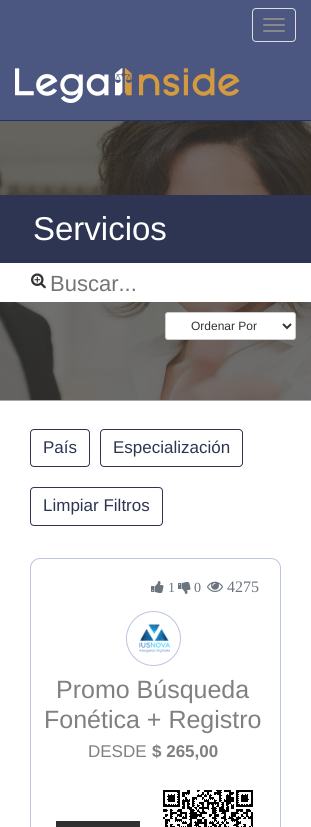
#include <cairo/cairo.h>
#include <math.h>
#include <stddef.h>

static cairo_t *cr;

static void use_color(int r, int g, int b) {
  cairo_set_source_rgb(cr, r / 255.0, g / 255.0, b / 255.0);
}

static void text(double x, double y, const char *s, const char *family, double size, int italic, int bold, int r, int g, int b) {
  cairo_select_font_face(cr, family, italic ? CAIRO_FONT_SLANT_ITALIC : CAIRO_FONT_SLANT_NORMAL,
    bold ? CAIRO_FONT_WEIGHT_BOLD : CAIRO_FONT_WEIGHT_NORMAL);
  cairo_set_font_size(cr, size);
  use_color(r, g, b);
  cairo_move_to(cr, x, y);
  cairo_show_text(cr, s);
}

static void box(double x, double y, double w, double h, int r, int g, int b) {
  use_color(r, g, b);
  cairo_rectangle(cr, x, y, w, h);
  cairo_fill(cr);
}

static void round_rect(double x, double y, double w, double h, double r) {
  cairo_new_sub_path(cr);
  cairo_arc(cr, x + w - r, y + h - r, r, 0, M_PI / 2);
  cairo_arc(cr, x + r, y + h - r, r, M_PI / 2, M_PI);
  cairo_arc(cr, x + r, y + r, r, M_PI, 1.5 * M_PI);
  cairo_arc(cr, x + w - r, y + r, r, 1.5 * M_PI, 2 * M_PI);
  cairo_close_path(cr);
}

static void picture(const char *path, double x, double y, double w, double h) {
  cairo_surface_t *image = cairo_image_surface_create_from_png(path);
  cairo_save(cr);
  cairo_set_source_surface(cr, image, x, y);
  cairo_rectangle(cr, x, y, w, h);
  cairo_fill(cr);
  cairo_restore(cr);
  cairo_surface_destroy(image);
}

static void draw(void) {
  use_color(255, 255, 255);
  cairo_paint(cr);
  box(0, 0, 311, 120, 75, 86, 129);
  box(0, 120, 311, 1, 36, 49, 102);
  round_rect(252.5, 8.5, 43, 33, 3.5);
  use_color(221, 221, 221);
  cairo_set_line_width(cr, 1);
  cairo_stroke(cr);
  use_color(136, 136, 136);
  round_rect(263, 18, 22, 2, 1);
  cairo_fill(cr);
  round_rect(263, 24, 22, 2, 1);
  cairo_fill(cr);
  round_rect(263, 30, 22, 2, 1);
  cairo_fill(cr);
  picture("img_01.png", 15, 68, 225, 35);
  picture("img_02.png", 0, 121, 311, 279);
  box(0, 400, 311, 1, 168, 168, 168);
  box(0, 195, 311, 68, 46, 53, 82);
  box(0, 263, 311, 39, 255, 255, 255);
  picture("img_03.png", 31, 273, 15, 16);
  round_rect(165.5, 312.5, 130, 27, 2.5);
  cairo_fill_preserve(cr);
  use_color(204, 204, 204);
  cairo_stroke(cr);
  cairo_new_path(cr);
  cairo_move_to(cr, 283, 324);
  cairo_line_to(cr, 287, 328);
  cairo_line_to(cr, 291, 324);
  use_color(51, 51, 51);
  cairo_set_line_width(cr, 2);
  cairo_stroke(cr);
  round_rect(30.5, 429.5, 59, 37, 3.5);
  use_color(46, 53, 82);
  cairo_set_line_width(cr, 1);
  cairo_stroke(cr);
  round_rect(100.5, 429.5, 142, 37, 3.5);
  cairo_stroke(cr);
  round_rect(30.5, 487.5, 132, 38, 3.5);
  cairo_stroke(cr);
  round_rect(30.5, 558.5, 250, 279, 9.5);
  use_color(188, 197, 224);
  cairo_stroke(cr);
  picture("img_04.png", 151, 581, 13, 12);
  picture("img_05.png", 178, 582, 13, 12);
  picture("img_06.png", 207, 581, 16, 11);
  picture("img_07.png", 139, 623, 31, 30);
  cairo_arc(cr, 153.5, 638.5, 27, 0, 2 * M_PI);
  cairo_stroke(cr);
  box(56, 821, 84, 6, 48, 48, 48);
  picture("img_08.png", 163, 790, 90, 37);
  text(33, 240, "Servicios", "Liberation Sans", 33, 0, 0, 255, 255, 255);
  text(50, 291, "Buscar...", "Liberation Sans", 22, 0, 0, 117, 117, 117);
  text(191, 330, "Ordenar Por", "Liberation Sans", 12, 0, 0, 51, 51, 51);
  text(43, 453, "País", "Liberation Sans", 17, 0, 0, 46, 53, 82);
  text(113, 453, "Especialización", "Liberation Sans", 17, 0, 0, 46, 53, 82);
  text(43, 511, "Limpiar Filtros", "Liberation Sans", 17, 0, 0, 46, 53, 82);
  text(168, 592, "1", "Liberation Serif", 14, 0, 0, 108, 117, 125);
  text(194, 592, "0", "Liberation Serif", 14, 0, 0, 108, 117, 125);
  text(227, 592, "4275", "Liberation Serif", 16, 0, 0, 108, 117, 125);
  text(56, 698, "Promo Búsqueda", "Liberation Sans", 25, 0, 0, 128, 128, 130);
  text(44, 728, "Fonética + Registro", "Liberation Sans", 25, 0, 0, 128, 128, 130);
  text(88, 757, "DESDE", "Liberation Sans", 17, 0, 0, 128, 128, 130);
  text(152, 757, "$ 265,00", "Liberation Sans", 17, 0, 1, 128, 128, 130);
}

int main(void) {
  cairo_surface_t *surface = cairo_image_surface_create(CAIRO_FORMAT_RGB24, 311, 827);
  cr = cairo_create(surface);
  cairo_font_options_t *options = cairo_font_options_create();
  cairo_font_options_set_hint_metrics(options, CAIRO_HINT_METRICS_OFF);
  cairo_font_options_set_hint_style(options, CAIRO_HINT_STYLE_NONE);
  cairo_set_font_options(cr, options);
  cairo_set_miter_limit(cr, 4);
  draw();
  cairo_surface_write_to_png(surface, "out.png");
  cairo_font_options_destroy(options);
  cairo_destroy(cr);
  cairo_surface_destroy(surface);
  return 0;
}
